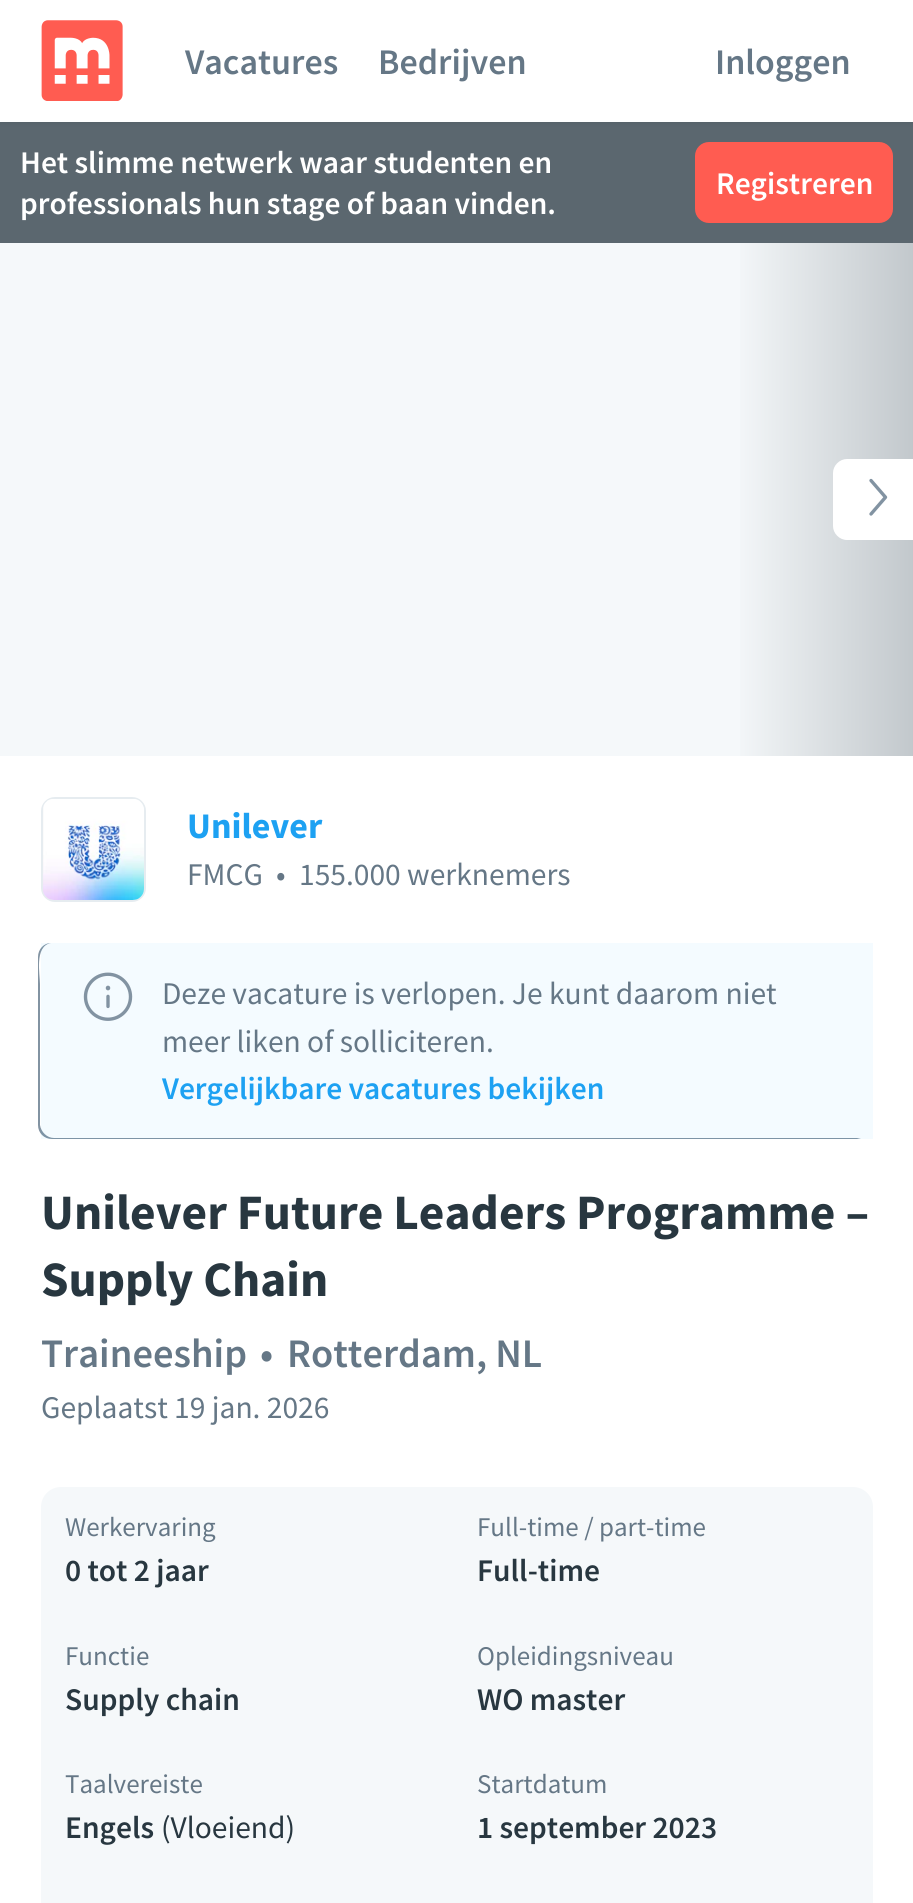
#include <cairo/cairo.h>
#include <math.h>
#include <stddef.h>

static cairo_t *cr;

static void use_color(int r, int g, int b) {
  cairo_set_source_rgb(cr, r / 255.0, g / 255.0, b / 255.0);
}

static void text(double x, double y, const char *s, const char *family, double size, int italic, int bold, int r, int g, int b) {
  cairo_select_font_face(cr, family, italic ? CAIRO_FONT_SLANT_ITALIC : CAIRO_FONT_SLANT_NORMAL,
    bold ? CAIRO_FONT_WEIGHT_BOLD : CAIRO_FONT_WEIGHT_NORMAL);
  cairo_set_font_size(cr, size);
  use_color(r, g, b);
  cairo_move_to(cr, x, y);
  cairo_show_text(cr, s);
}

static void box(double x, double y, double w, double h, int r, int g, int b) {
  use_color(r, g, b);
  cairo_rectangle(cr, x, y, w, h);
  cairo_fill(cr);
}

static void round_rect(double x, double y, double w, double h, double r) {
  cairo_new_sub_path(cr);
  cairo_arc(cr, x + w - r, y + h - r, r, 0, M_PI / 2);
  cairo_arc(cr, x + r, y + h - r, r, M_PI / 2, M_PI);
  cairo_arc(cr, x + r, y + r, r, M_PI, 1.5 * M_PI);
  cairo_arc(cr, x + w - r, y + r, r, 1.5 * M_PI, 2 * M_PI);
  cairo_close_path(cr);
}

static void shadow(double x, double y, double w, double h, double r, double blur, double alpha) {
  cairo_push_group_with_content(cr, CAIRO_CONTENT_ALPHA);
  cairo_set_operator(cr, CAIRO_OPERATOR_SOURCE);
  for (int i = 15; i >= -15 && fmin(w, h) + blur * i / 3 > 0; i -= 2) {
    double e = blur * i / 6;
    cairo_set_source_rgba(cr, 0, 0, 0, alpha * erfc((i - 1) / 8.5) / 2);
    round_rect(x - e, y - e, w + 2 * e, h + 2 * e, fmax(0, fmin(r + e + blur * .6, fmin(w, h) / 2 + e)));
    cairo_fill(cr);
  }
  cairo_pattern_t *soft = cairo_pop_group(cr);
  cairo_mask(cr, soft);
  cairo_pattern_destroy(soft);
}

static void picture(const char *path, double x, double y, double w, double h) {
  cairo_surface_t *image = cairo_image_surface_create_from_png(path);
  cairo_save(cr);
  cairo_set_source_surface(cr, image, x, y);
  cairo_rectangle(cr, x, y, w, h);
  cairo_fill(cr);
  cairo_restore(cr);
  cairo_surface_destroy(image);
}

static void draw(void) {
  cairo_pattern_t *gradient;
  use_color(245, 248, 250);
  cairo_paint(cr);
  box(0, 122, 913, 121, 91, 103, 111);
  use_color(40, 55, 64);
  shadow(0, 2, 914, 122, 0, 2, 0.12);
  box(0, 0, 913, 122, 255, 255, 255);
  picture("img_01.png", 41, 20, 82, 81);
  use_color(255, 92, 81);
  round_rect(695, 142, 198, 81, 14);
  cairo_fill(cr);
  gradient = cairo_pattern_create_linear(731, 500, 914, 500);
  cairo_pattern_add_color_stop_rgba(gradient, 0, 0.961, 0.973, 0.98, 1);
  cairo_pattern_add_color_stop_rgba(gradient, 1, 0.761, 0.784, 0.8, 1);
  cairo_set_source(cr, gradient);
  cairo_pattern_destroy(gradient);
  cairo_rectangle(cr, 740, 243, 173, 513);
  cairo_fill(cr);
  use_color(255, 255, 255);
  cairo_new_path(cr);
  cairo_move_to(cr, 847, 459);
  cairo_line_to(cr, 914, 459);
  cairo_line_to(cr, 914, 540);
  cairo_line_to(cr, 847, 540);
  cairo_curve_to(cr, 839.5, 540, 833, 533.5, 833, 526);
  cairo_line_to(cr, 833, 473);
  cairo_curve_to(cr, 833, 465.5, 839.5, 459, 847, 459);
  cairo_close_path(cr);
  cairo_fill(cr);
  picture("img_02.png", 869, 478, 19, 38);
  box(0, 756, 913, 1147, 255, 255, 255);
  round_rect(42, 798, 103, 103, 13);
  use_color(230, 236, 240);
  cairo_stroke(cr);
  picture("img_03.png", 43, 799, 101, 101);
  use_color(130, 147, 162);
  cairo_new_path(cr);
  cairo_move_to(cr, 51, 943);
  cairo_curve_to(cr, 44, 943, 38, 949, 38, 957);
  cairo_line_to(cr, 38, 1125);
  cairo_curve_to(cr, 38, 1133, 44, 1139, 52, 1139);
  cairo_line_to(cr, 857, 1139);
  cairo_line_to(cr, 861, 1138);
  cairo_line_to(cr, 54, 1138);
  cairo_curve_to(cr, 47, 1138, 41, 1132, 40, 1125);
  cairo_line_to(cr, 40, 984);
  cairo_curve_to(cr, 40, 975, 34, 946, 51, 943);
  cairo_close_path(cr);
  cairo_fill(cr);
  cairo_set_source_rgba(cr, 0.114, 0.631, 0.949, 0.05);
  cairo_rectangle(cr, 41, 943, 832, 196);
  cairo_fill(cr);
  picture("img_04.png", 83, 972, 50, 49);
  use_color(245, 248, 250);
  round_rect(41, 1487, 832, 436, 20);
  cairo_fill(cr);
  text(185, 74, "Vacatures", "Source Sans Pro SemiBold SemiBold", 36, 0, 0, 101, 119, 134);
  text(378, 74, "Bedrijven", "Source Sans Pro SemiBold SemiBold", 36, 0, 0, 101, 119, 134);
  text(715, 74, "Inloggen", "Source Sans Pro SemiBold SemiBold", 36, 0, 0, 101, 119, 134);
  text(20, 173, "Het slimme netwerk waar studenten en", "Source Sans Pro SemiBold SemiBold", 31.5, 0, 0, 255, 255, 255);
  text(20, 214, "professionals hun stage of baan vinden.", "Source Sans Pro SemiBold SemiBold", 31.5, 0, 0, 255, 255, 255);
  text(716, 194, "Registreren", "Source Sans Pro SemiBold SemiBold", 31.5, 0, 0, 255, 255, 255);
  text(187, 838, "Unilever", "Source Sans Pro", 36, 0, 1, 29, 161, 242);
  text(187, 885, "FMCG", "Source Sans Pro", 31.5, 0, 0, 101, 119, 134);
  text(276, 885, "•", "Source Sans Pro", 31.5, 0, 0, 101, 119, 134);
  text(299, 885, "155.000 werknemers", "Source Sans Pro", 31.5, 0, 0, 101, 119, 134);
  text(162, 1004, "Deze vacature is verlopen. Je kunt daarom niet", "Source Sans Pro", 31.5, 0, 0, 101, 119, 134);
  text(162, 1052, "meer liken of solliciteren.", "Source Sans Pro", 31.5, 0, 0, 101, 119, 134);
  text(162, 1099, "Vergelijkbare vacatures bekijken", "Source Sans Pro SemiBold SemiBold", 31.5, 0, 0, 29, 161, 242);
  text(41, 1229, "Unilever Future Leaders Programme –", "Source Sans Pro", 49.5, 0, 1, 40, 55, 64);
  text(41, 1296, "Supply Chain", "Source Sans Pro", 49.5, 0, 1, 40, 55, 64);
  text(41, 1367, "Traineeship", "Source Sans Pro SemiBold SemiBold", 40.5, 0, 0, 101, 119, 134);
  text(260, 1367, "•", "Source Sans Pro SemiBold SemiBold", 40.5, 0, 0, 101, 119, 134);
  text(287, 1367, "Rotterdam, NL", "Source Sans Pro SemiBold SemiBold", 40.5, 0, 0, 101, 119, 134);
  text(41, 1418, "Geplaatst 19 jan. 2026", "Source Sans Pro", 31.5, 0, 0, 101, 119, 134);
  text(65, 1536, "Werkervaring", "Source Sans Pro", 27, 0, 0, 101, 119, 134);
  text(65, 1581, "0 tot 2 jaar", "Source Sans Pro SemiBold SemiBold", 31.5, 0, 0, 40, 55, 64);
  text(477, 1536, "Full-time / part-time", "Source Sans Pro", 27, 0, 0, 101, 119, 134);
  text(477, 1581, "Full-time", "Source Sans Pro SemiBold SemiBold", 31.5, 0, 0, 40, 55, 64);
  text(65, 1665, "Functie", "Source Sans Pro", 27, 0, 0, 101, 119, 134);
  text(65, 1710, "Supply chain", "Source Sans Pro SemiBold SemiBold", 31.5, 0, 0, 40, 55, 64);
  text(477, 1665, "Opleidingsniveau", "Source Sans Pro", 27, 0, 0, 101, 119, 134);
  text(477, 1710, "WO master", "Source Sans Pro SemiBold SemiBold", 31.5, 0, 0, 40, 55, 64);
  text(65, 1793, "Taalvereiste", "Source Sans Pro", 27, 0, 0, 101, 119, 134);
  text(65, 1838, "Engels", "Source Sans Pro SemiBold SemiBold", 31.5, 0, 0, 40, 55, 64);
  text(161, 1838, "(Vloeiend)", "Source Sans Pro", 31.5, 0, 0, 40, 55, 64);
  text(477, 1793, "Startdatum", "Source Sans Pro", 27, 0, 0, 101, 119, 134);
  text(477, 1838, "1 september 2023", "Source Sans Pro SemiBold SemiBold", 31.5, 0, 0, 40, 55, 64);
}

int main(void) {
  cairo_surface_t *surface = cairo_image_surface_create(CAIRO_FORMAT_RGB24, 913, 1903);
  cr = cairo_create(surface);
  cairo_font_options_t *options = cairo_font_options_create();
  cairo_font_options_set_hint_metrics(options, CAIRO_HINT_METRICS_OFF);
  cairo_font_options_set_hint_style(options, CAIRO_HINT_STYLE_NONE);
  cairo_set_font_options(cr, options);
  cairo_set_miter_limit(cr, 4);
  draw();
  cairo_surface_write_to_png(surface, "out.png");
  cairo_font_options_destroy(options);
  cairo_destroy(cr);
  cairo_surface_destroy(surface);
  return 0;
}
